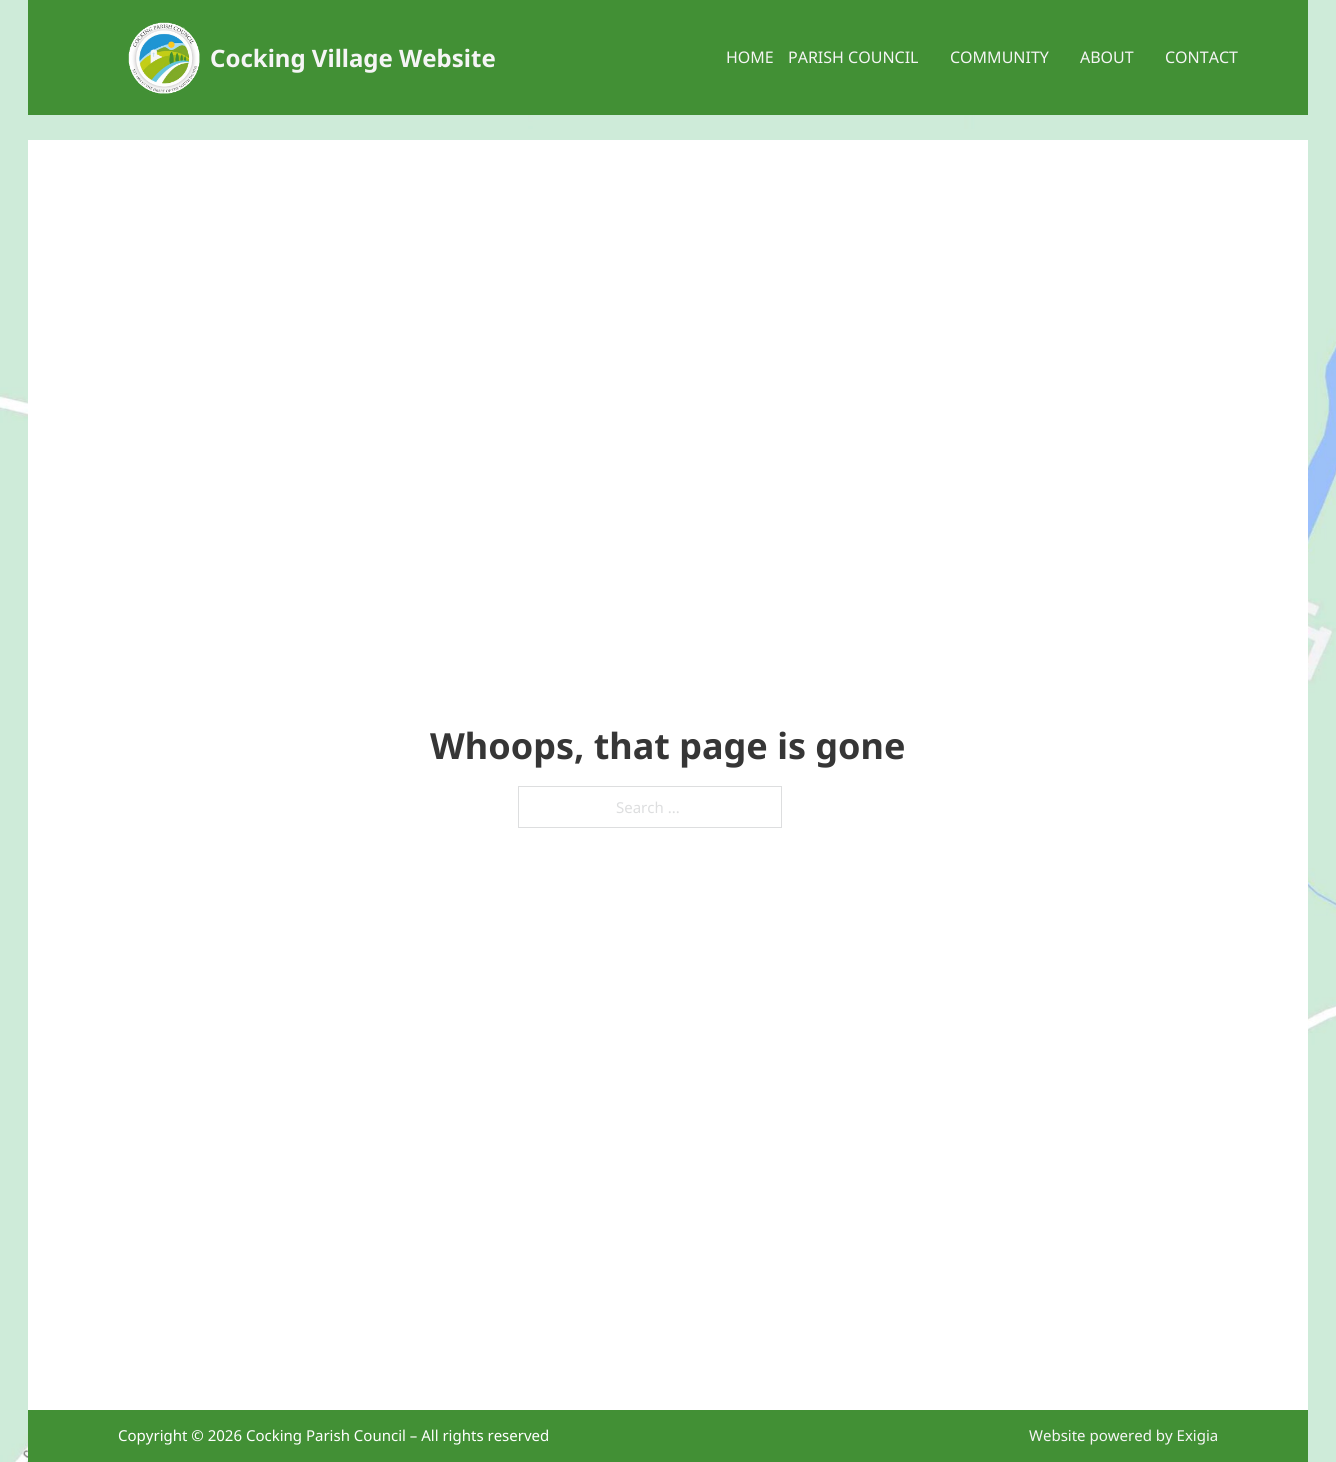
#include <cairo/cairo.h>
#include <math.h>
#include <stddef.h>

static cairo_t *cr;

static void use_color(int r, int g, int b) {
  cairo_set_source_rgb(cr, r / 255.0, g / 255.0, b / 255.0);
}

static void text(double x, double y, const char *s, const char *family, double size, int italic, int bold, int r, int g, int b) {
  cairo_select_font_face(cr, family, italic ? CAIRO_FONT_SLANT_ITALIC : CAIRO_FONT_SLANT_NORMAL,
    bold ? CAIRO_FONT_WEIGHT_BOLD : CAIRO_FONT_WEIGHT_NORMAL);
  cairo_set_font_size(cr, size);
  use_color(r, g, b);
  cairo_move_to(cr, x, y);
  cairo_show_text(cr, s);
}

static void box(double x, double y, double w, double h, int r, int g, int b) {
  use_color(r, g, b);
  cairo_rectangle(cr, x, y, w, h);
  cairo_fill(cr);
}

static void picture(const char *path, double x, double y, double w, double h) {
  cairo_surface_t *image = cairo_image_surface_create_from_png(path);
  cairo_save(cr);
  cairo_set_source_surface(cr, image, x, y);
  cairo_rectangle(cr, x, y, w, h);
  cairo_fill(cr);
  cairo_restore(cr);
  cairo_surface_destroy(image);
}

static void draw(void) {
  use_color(255, 255, 255);
  cairo_paint(cr);
  picture("img_01.png", 0, 0, 1336, 1462);
  box(28, 140, 1280, 1270, 255, 255, 255);
  box(533, 115, 431, 25, 206, 235, 217);
  box(28, 0, 1280, 115, 66, 144, 53);
  picture("img_02.png", 128, 22, 72, 72);
  cairo_rectangle(cr, 518.5, 786.5, 263, 41);
  use_color(221, 222, 223);
  cairo_set_line_width(cr, 1);
  cairo_stroke(cr);
  box(28, 1410, 1280, 52, 66, 144, 53);
  text(210, 67, "Cocking Village Website", "Noto Sans", 24, 0, 1, 245, 245, 245);
  text(726, 63, "HOME", "Noto Sans", 16, 0, 0, 245, 245, 245);
  text(788, 63, "PARISH COUNCIL", "Noto Sans", 16, 0, 0, 245, 245, 245);
  text(950, 63, "COMMUNITY", "Noto Sans", 16, 0, 0, 245, 245, 245);
  text(1080, 63, "ABOUT", "Noto Sans", 16, 0, 0, 245, 245, 245);
  text(1165, 63, "CONTACT", "Noto Sans", 16, 0, 0, 245, 245, 245);
  text(430, 759, "Whoops, that page is gone", "Noto Sans", 36, 0, 1, 54, 54, 54);
  text(616, 813, "Search ...", "Noto Sans", 15, 0, 0, 221, 222, 223);
  text(118, 1441, "Copyright © 2026 Cocking Parish Council – All rights reserved", "Noto Sans", 15, 0, 0, 255, 255, 255);
  text(1029, 1441, "Website powered by Exigia", "Noto Sans", 15, 0, 0, 245, 245, 245);
}

int main(void) {
  cairo_surface_t *surface = cairo_image_surface_create(CAIRO_FORMAT_RGB24, 1336, 1462);
  cr = cairo_create(surface);
  cairo_font_options_t *options = cairo_font_options_create();
  cairo_font_options_set_hint_metrics(options, CAIRO_HINT_METRICS_OFF);
  cairo_font_options_set_hint_style(options, CAIRO_HINT_STYLE_NONE);
  cairo_set_font_options(cr, options);
  cairo_set_miter_limit(cr, 4);
  draw();
  cairo_surface_write_to_png(surface, "out.png");
  cairo_font_options_destroy(options);
  cairo_destroy(cr);
  cairo_surface_destroy(surface);
  return 0;
}
